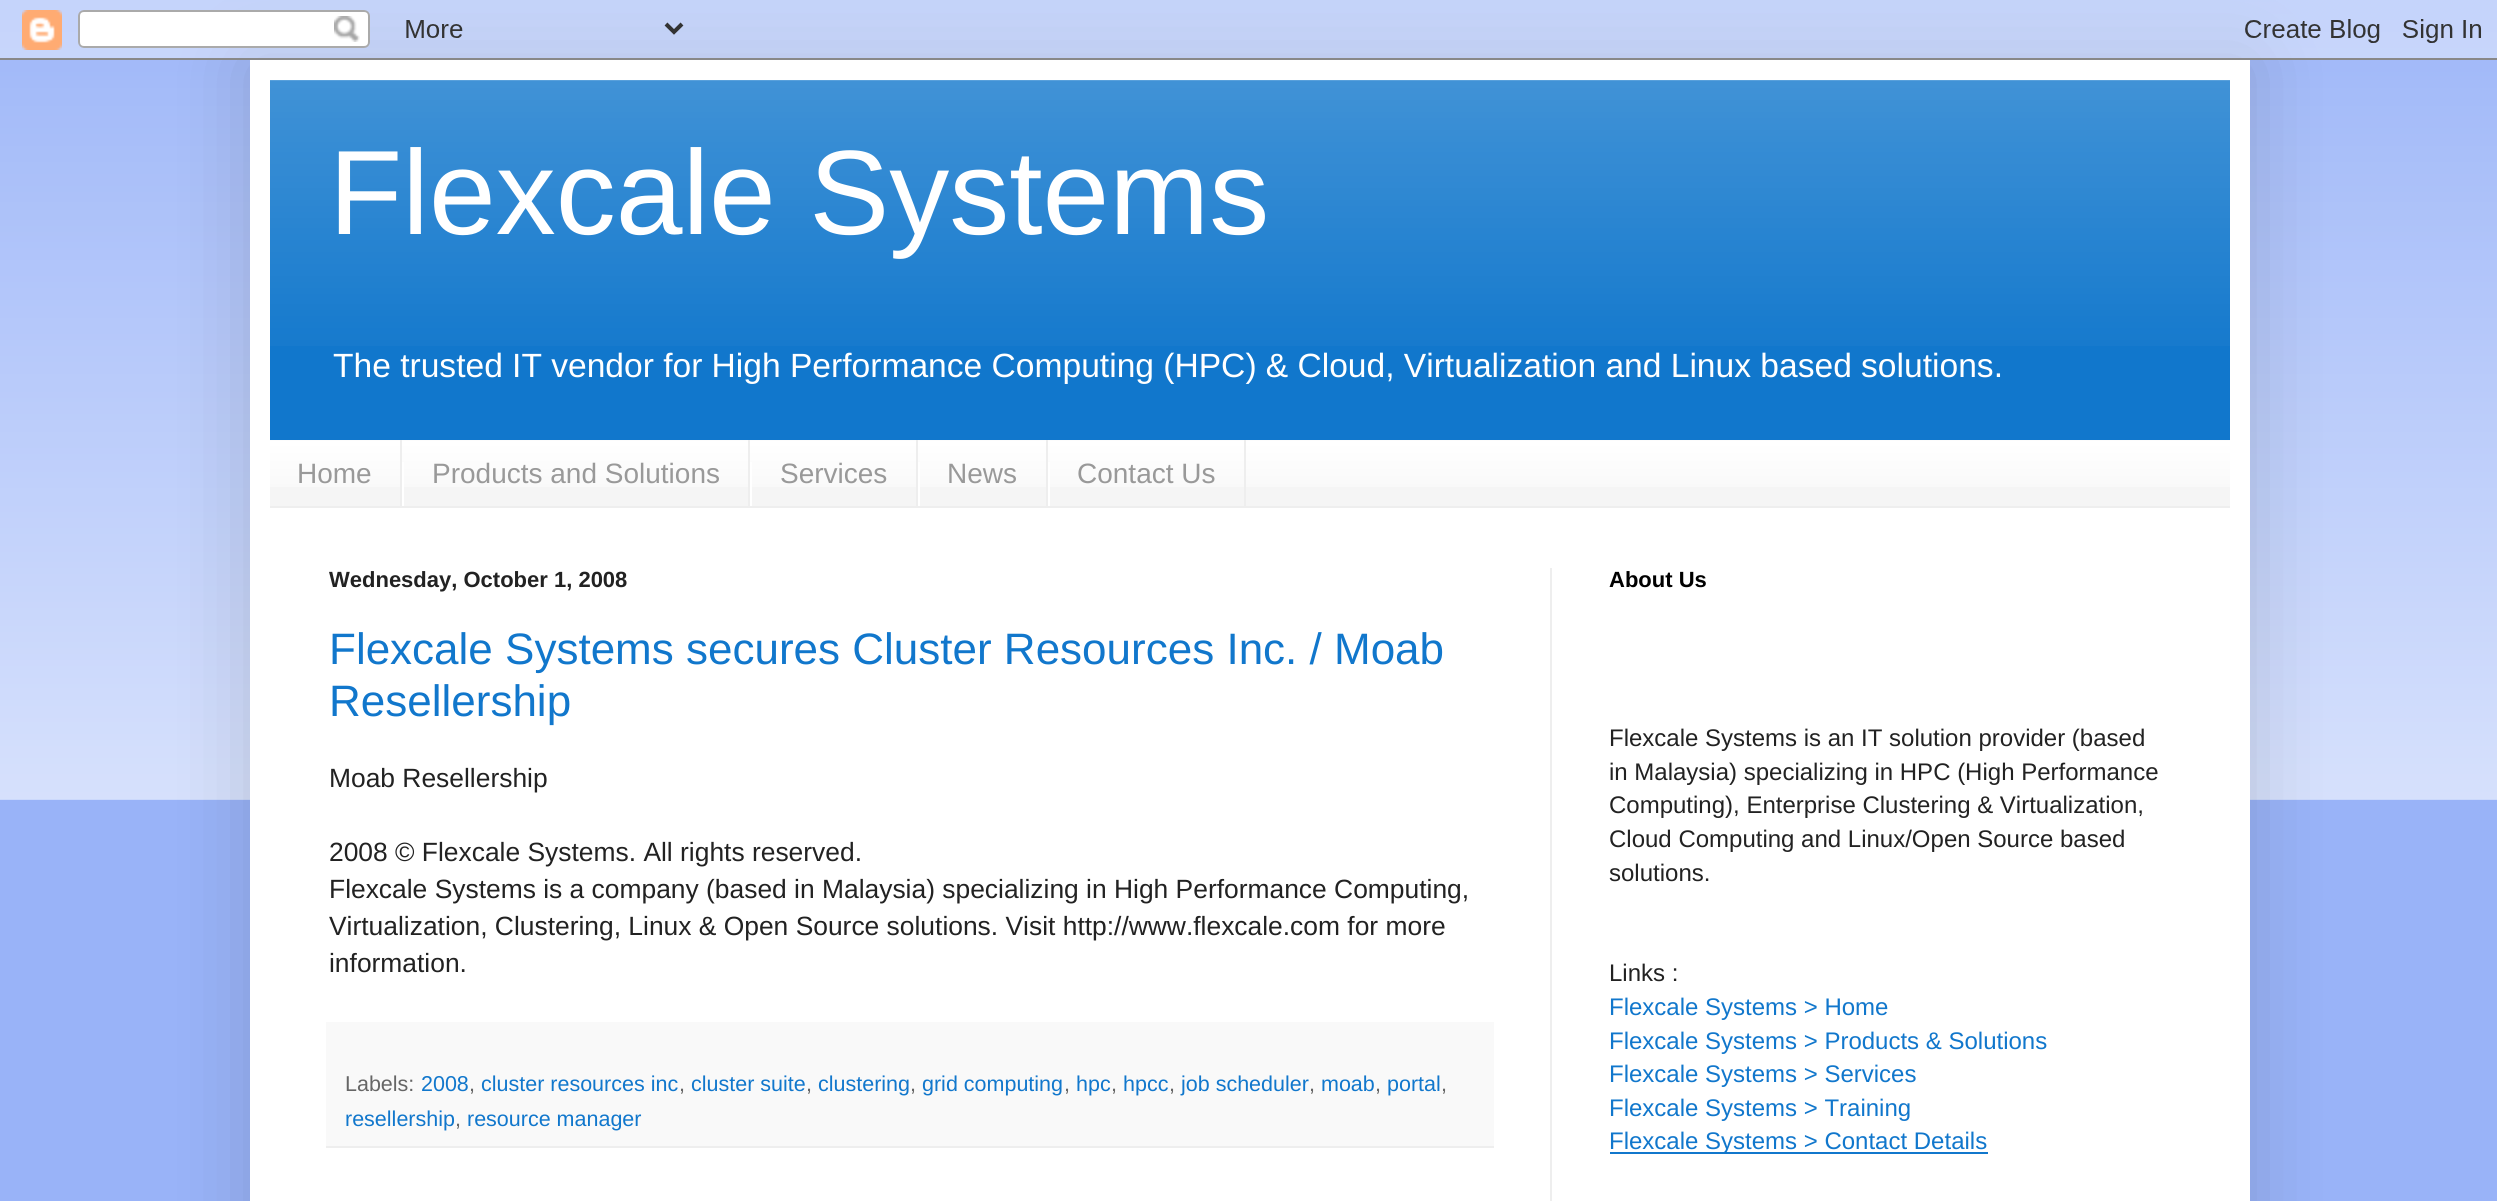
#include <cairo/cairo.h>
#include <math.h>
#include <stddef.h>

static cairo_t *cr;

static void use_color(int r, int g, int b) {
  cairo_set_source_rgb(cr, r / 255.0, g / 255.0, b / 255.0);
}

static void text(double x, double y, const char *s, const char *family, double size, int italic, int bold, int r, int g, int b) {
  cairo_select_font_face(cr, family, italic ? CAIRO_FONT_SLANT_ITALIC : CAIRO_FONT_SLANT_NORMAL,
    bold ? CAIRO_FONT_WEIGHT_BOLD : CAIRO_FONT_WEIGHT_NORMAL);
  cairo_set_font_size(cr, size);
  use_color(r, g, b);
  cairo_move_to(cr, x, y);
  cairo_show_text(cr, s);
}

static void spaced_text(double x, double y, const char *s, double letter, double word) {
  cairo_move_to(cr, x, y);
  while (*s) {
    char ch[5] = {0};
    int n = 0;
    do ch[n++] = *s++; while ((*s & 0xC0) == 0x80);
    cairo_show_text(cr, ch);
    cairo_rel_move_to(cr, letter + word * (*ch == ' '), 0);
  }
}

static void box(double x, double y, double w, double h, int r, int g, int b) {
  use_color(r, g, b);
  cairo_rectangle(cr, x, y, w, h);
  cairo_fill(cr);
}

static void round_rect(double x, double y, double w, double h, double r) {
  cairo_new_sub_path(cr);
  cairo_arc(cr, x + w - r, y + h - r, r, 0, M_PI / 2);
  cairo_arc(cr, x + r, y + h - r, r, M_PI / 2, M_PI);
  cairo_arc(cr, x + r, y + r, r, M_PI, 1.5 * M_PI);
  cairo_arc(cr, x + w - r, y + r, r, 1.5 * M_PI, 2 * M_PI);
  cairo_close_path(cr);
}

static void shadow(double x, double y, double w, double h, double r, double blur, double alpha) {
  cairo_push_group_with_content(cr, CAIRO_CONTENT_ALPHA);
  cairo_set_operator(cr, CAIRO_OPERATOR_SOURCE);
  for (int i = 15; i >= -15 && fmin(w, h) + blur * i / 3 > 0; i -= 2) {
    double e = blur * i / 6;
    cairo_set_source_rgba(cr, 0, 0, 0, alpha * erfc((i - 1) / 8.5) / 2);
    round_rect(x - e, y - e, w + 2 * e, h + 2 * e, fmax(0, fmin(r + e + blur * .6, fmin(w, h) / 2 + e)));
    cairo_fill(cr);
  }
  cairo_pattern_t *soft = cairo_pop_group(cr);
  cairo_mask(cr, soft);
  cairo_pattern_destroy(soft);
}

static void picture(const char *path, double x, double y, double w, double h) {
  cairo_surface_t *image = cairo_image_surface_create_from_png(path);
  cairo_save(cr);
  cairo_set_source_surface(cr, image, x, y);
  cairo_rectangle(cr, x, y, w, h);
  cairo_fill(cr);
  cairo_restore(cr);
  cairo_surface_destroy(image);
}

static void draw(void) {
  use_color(153, 179, 248);
  cairo_paint(cr);
  picture("img_01.png", 0, 0, 2497, 800);
  use_color(0, 0, 0);
  shadow(250, 60, 2000, 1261, 0, 40, 0.15);
  picture("img_02.png", 0, 0, 2497, 60);
  box(250, 60, 2000, 1141, 255, 255, 255);
  box(270, 80, 1960, 360, 17, 119, 204);
  picture("img_03.png", 270, 80, 1960, 266);
  box(270, 440, 1960, 66, 245, 245, 245);
  picture("img_04.png", 270, 440, 1960, 47);
  box(270, 506, 1960, 2, 238, 238, 238);
  box(400, 440, 2, 66, 238, 238, 238);
  box(748, 440, 2, 66, 238, 238, 238);
  box(402, 462, 2, 44, 255, 255, 255);
  box(916, 440, 2, 66, 238, 238, 238);
  box(750, 462, 2, 44, 255, 255, 255);
  box(1046, 440, 2, 66, 238, 238, 238);
  box(918, 462, 2, 44, 255, 255, 255);
  box(1244, 440, 2, 66, 238, 238, 238);
  box(1048, 462, 2, 44, 255, 255, 255);
  box(1550, 568, 2, 633, 238, 238, 238);
  box(326, 1022, 1168, 124, 249, 249, 249);
  box(326, 1146, 1168, 2, 238, 238, 238);
  box(1610, 1152, 378, 2, 17, 119, 204);
  text(329, 234, "Flexcale Systems", "Liberation Sans", 120, 0, 0, 255, 255, 255);
  cairo_set_font_size(cr, 33.6);
  spaced_text(333, 377, "The trusted IT vendor for High Performance Computing (HPC) & Cloud, Virtualization and Linux based solutions.", 0, -0.1);
  text(297, 483, "Home", "Liberation Sans", 28, 0, 0, 153, 153, 153);
  text(432, 483, "Products and Solutions", "Liberation Sans", 28, 0, 0, 153, 153, 153);
  text(780, 483, "Services", "Liberation Sans", 28, 0, 0, 153, 153, 153);
  text(947, 483, "News", "Liberation Sans", 28, 0, 0, 153, 153, 153);
  text(1077, 483, "Contact Us", "Liberation Sans", 28, 0, 0, 153, 153, 153);
  text(329, 587, "Wednesday, October 1, 2008", "Liberation Sans", 22, 0, 1, 34, 34, 34);
  text(329, 664, "Flexcale Systems secures Cluster Resources Inc. / Moab", "Liberation Sans", 44, 0, 0, 17, 119, 204);
  text(329, 716, "Resellership", "Liberation Sans", 44, 0, 0, 17, 119, 204);
  text(329, 787, "Moab Resellership", "Liberation Sans", 26.4, 0, 0, 34, 34, 34);
  text(329, 861, "2008 © Flexcale Systems. All rights reserved.", "Liberation Sans", 26.4, 0, 0, 34, 34, 34);
  text(329, 898, "Flexcale Systems is a company (based in Malaysia) specializing in High Performance Computing,", "Liberation Sans", 26.4, 0, 0, 34, 34, 34);
  text(329, 935, "Virtualization, Clustering, Linux & Open Source solutions. Visit http://www.flexcale.com for more", "Liberation Sans", 26.4, 0, 0, 34, 34, 34);
  text(329, 972, "information.", "Liberation Sans", 26.4, 0, 0, 34, 34, 34);
  text(345, 1091, "Labels:", "Liberation Sans", 21.5, 0, 0, 102, 102, 102);
  text(421, 1091, "2008", "Liberation Sans", 21.5, 0, 0, 17, 119, 204);
  text(469, 1091, ",", "Liberation Sans", 21.5, 0, 0, 102, 102, 102);
  text(481, 1091, "cluster resources inc", "Liberation Sans", 21.5, 0, 0, 17, 119, 204);
  text(679, 1091, ",", "Liberation Sans", 21.5, 0, 0, 102, 102, 102);
  text(691, 1091, "cluster suite", "Liberation Sans", 21.5, 0, 0, 17, 119, 204);
  text(806, 1091, ",", "Liberation Sans", 21.5, 0, 0, 102, 102, 102);
  text(818, 1091, "clustering", "Liberation Sans", 21.5, 0, 0, 17, 119, 204);
  text(910, 1091, ",", "Liberation Sans", 21.5, 0, 0, 102, 102, 102);
  text(922, 1091, "grid computing", "Liberation Sans", 21.5, 0, 0, 17, 119, 204);
  text(1064, 1091, ",", "Liberation Sans", 21.5, 0, 0, 102, 102, 102);
  text(1076, 1091, "hpc", "Liberation Sans", 21.5, 0, 0, 17, 119, 204);
  text(1111, 1091, ",", "Liberation Sans", 21.5, 0, 0, 102, 102, 102);
  text(1123, 1091, "hpcc", "Liberation Sans", 21.5, 0, 0, 17, 119, 204);
  text(1169, 1091, ",", "Liberation Sans", 21.5, 0, 0, 102, 102, 102);
  text(1181, 1091, "job scheduler", "Liberation Sans", 21.5, 0, 0, 17, 119, 204);
  text(1309, 1091, ",", "Liberation Sans", 21.5, 0, 0, 102, 102, 102);
  text(1321, 1091, "moab", "Liberation Sans", 21.5, 0, 0, 17, 119, 204);
  text(1375, 1091, ",", "Liberation Sans", 21.5, 0, 0, 102, 102, 102);
  text(1387, 1091, "portal", "Liberation Sans", 21.5, 0, 0, 17, 119, 204);
  text(1441, 1091, ",", "Liberation Sans", 21.5, 0, 0, 102, 102, 102);
  text(345, 1126, "resellership", "Liberation Sans", 21.5, 0, 0, 17, 119, 204);
  text(455, 1126, ",", "Liberation Sans", 21.5, 0, 0, 102, 102, 102);
  text(467, 1126, "resource manager", "Liberation Sans", 21.5, 0, 0, 17, 119, 204);
  text(1609, 587, "About Us", "Liberation Sans", 22, 0, 1, 0, 0, 0);
  text(1609, 746, "Flexcale Systems is an IT solution provider (based", "Liberation Sans", 24, 0, 0, 34, 34, 34);
  text(1609, 780, "in Malaysia) specializing in HPC (High Performance", "Liberation Sans", 24, 0, 0, 34, 34, 34);
  text(1609, 813, "Computing), Enterprise Clustering & Virtualization,", "Liberation Sans", 24, 0, 0, 34, 34, 34);
  text(1609, 847, "Cloud Computing and Linux/Open Source based", "Liberation Sans", 24, 0, 0, 34, 34, 34);
  text(1609, 881, "solutions.", "Liberation Sans", 24, 0, 0, 34, 34, 34);
  text(1609, 981, "Links :", "Liberation Sans", 24, 0, 0, 34, 34, 34);
  text(1609, 1015, "Flexcale Systems > Home", "Liberation Sans", 24, 0, 0, 17, 119, 204);
  text(1609, 1049, "Flexcale Systems > Products & Solutions", "Liberation Sans", 24, 0, 0, 17, 119, 204);
  text(1609, 1082, "Flexcale Systems > Services", "Liberation Sans", 24, 0, 0, 17, 119, 204);
  text(1609, 1116, "Flexcale Systems > Training", "Liberation Sans", 24, 0, 0, 17, 119, 204);
  text(1609, 1149, "Flexcale Systems > Contact Details", "Liberation Sans", 24, 0, 0, 17, 119, 204);
}

int main(void) {
  cairo_surface_t *surface = cairo_image_surface_create(CAIRO_FORMAT_RGB24, 2497, 1201);
  cr = cairo_create(surface);
  cairo_font_options_t *options = cairo_font_options_create();
  cairo_font_options_set_hint_metrics(options, CAIRO_HINT_METRICS_OFF);
  cairo_font_options_set_hint_style(options, CAIRO_HINT_STYLE_NONE);
  cairo_set_font_options(cr, options);
  cairo_set_miter_limit(cr, 4);
  draw();
  cairo_surface_write_to_png(surface, "out.png");
  cairo_font_options_destroy(options);
  cairo_destroy(cr);
  cairo_surface_destroy(surface);
  return 0;
}
